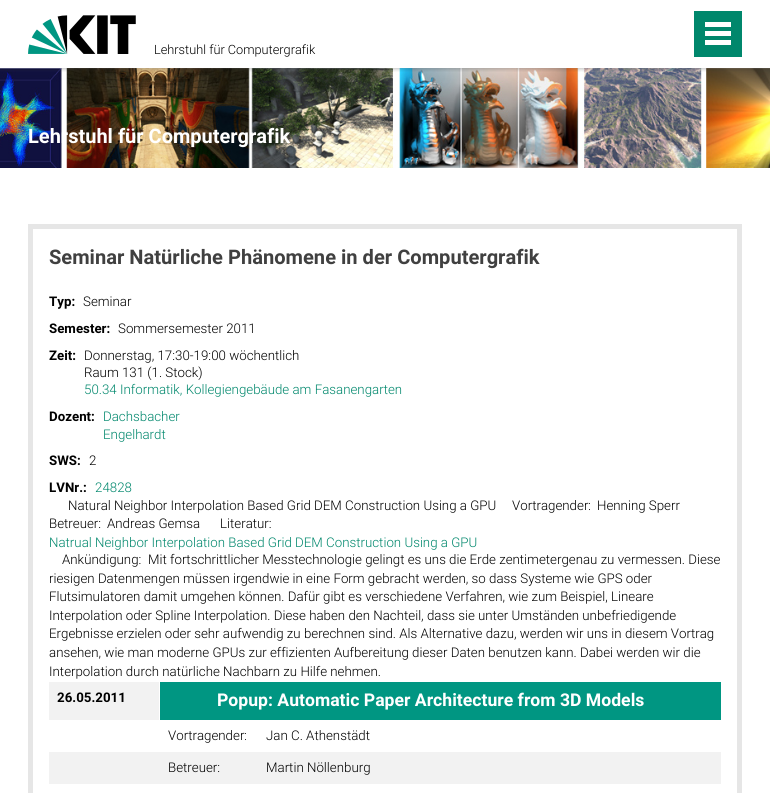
#include <cairo/cairo.h>
#include <math.h>
#include <stddef.h>

static cairo_t *cr;

static void use_color(int r, int g, int b) {
  cairo_set_source_rgb(cr, r / 255.0, g / 255.0, b / 255.0);
}

static void text(double x, double y, const char *s, const char *family, double size, int italic, int bold, int r, int g, int b) {
  cairo_select_font_face(cr, family, italic ? CAIRO_FONT_SLANT_ITALIC : CAIRO_FONT_SLANT_NORMAL,
    bold ? CAIRO_FONT_WEIGHT_BOLD : CAIRO_FONT_WEIGHT_NORMAL);
  cairo_set_font_size(cr, size);
  use_color(r, g, b);
  cairo_move_to(cr, x, y);
  cairo_show_text(cr, s);
}

static void box(double x, double y, double w, double h, int r, int g, int b) {
  use_color(r, g, b);
  cairo_rectangle(cr, x, y, w, h);
  cairo_fill(cr);
}

static void round_rect(double x, double y, double w, double h, double r) {
  cairo_new_sub_path(cr);
  cairo_arc(cr, x + w - r, y + h - r, r, 0, M_PI / 2);
  cairo_arc(cr, x + r, y + h - r, r, M_PI / 2, M_PI);
  cairo_arc(cr, x + r, y + r, r, M_PI, 1.5 * M_PI);
  cairo_arc(cr, x + w - r, y + r, r, 1.5 * M_PI, 2 * M_PI);
  cairo_close_path(cr);
}

static void shadow(double x, double y, double w, double h, double r, double blur, double alpha) {
  cairo_push_group_with_content(cr, CAIRO_CONTENT_ALPHA);
  cairo_set_operator(cr, CAIRO_OPERATOR_SOURCE);
  for (int i = 15; i >= -15 && fmin(w, h) + blur * i / 3 > 0; i -= 2) {
    double e = blur * i / 6;
    cairo_set_source_rgba(cr, 0, 0, 0, alpha * erfc((i - 1) / 8.5) / 2);
    round_rect(x - e, y - e, w + 2 * e, h + 2 * e, fmax(0, fmin(r + e + blur * .6, fmin(w, h) / 2 + e)));
    cairo_fill(cr);
  }
  cairo_pattern_t *soft = cairo_pop_group(cr);
  cairo_mask(cr, soft);
  cairo_pattern_destroy(soft);
}

static void picture(const char *path, double x, double y, double w, double h) {
  cairo_surface_t *image = cairo_image_surface_create_from_png(path);
  cairo_save(cr);
  cairo_set_source_surface(cr, image, x, y);
  cairo_rectangle(cr, x, y, w, h);
  cairo_fill(cr);
  cairo_restore(cr);
  cairo_surface_destroy(image);
}

static void draw(void) {
  use_color(255, 255, 255);
  cairo_paint(cr);
  picture("img_02.png", 0, 68, 770, 100);
  cairo_save(cr);
  cairo_rectangle(cr, 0, 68, 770, 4);
  cairo_clip(cr);
  use_color(64, 64, 64);
  shadow(0, 0, 770, 68, 0, 2.5, 0.5);
  cairo_restore(cr);
  picture("img_01.png", 28, 15, 108, 39);
  box(694, 11, 48, 46, 0, 135, 108);
  box(705, 40, 26, 5, 255, 255, 255);
  box(705, 31, 26, 5, 255, 255, 255);
  box(705, 22, 26, 5, 255, 255, 255);
  cairo_rectangle(cr, 30.5, 226.5, 709, 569);
  use_color(230, 230, 230);
  cairo_set_line_width(cr, 5);
  cairo_stroke(cr);
  box(49, 682, 110, 38, 242, 242, 242);
  box(160, 682, 561, 38, 0, 150, 130);
  box(49, 752, 672, 32, 242, 242, 242);
  text(154, 54, "Lehrstuhl für Computergrafik", "Roboto Light", 12.75, 0, 0, 0, 0, 0);
  text(28, 143, "Lehrstuhl für Computergrafik", "Roboto", 20, 0, 1, 255, 255, 255);
  text(49, 264, "Seminar Natürliche Phänomene in der Computergrafik", "Roboto", 20.1, 0, 1, 64, 64, 64);
  text(49, 306, "Typ:", "Roboto", 13.3, 0, 1, 0, 0, 0);
  text(83, 306, "Seminar", "Roboto Light", 13.3, 0, 0, 0, 0, 0);
  text(49, 333, "Semester:", "Roboto", 13.3, 0, 1, 0, 0, 0);
  text(118, 333, "Sommersemester 2011", "Roboto Light", 13.3, 0, 0, 0, 0, 0);
  text(49, 360, "Zeit:", "Roboto", 13.3, 0, 1, 0, 0, 0);
  text(84, 360, "Donnerstag, 17:30-19:00 wöchentlich", "Roboto Light", 13.3, 0, 0, 0, 0, 0);
  text(84, 377, "Raum 131 (1. Stock)", "Roboto Light", 13.3, 0, 0, 0, 0, 0);
  text(84, 394, "50.34 Informatik, Kollegiengebäude am Fasanengarten", "Roboto Light", 13.3, 0, 0, 0, 135, 108);
  text(49, 421, "Dozent:", "Roboto", 13.3, 0, 1, 0, 0, 0);
  text(103, 421, "Dachsbacher", "Roboto Light", 13.3, 0, 0, 0, 135, 108);
  text(103, 439, "Engelhardt", "Roboto Light", 13.3, 0, 0, 0, 135, 108);
  text(49, 465, "SWS:", "Roboto", 13.3, 0, 1, 0, 0, 0);
  text(89, 465, "2", "Roboto Light", 13.3, 0, 0, 0, 0, 0);
  text(49, 492, "LVNr.:", "Roboto", 13.3, 0, 1, 0, 0, 0);
  text(95, 492, "24828", "Roboto Light", 13.3, 0, 0, 0, 135, 108);
  text(68, 510, "Natural Neighbor Interpolation Based Grid DEM Construction Using a GPU", "Roboto Light", 13.3, 0, 0, 0, 0, 0);
  text(512, 510, "Vortragender:", "Roboto Light", 13.3, 0, 0, 0, 0, 0);
  text(597, 510, "Henning Sperr", "Roboto Light", 13.3, 0, 0, 0, 0, 0);
  text(49, 528, "Betreuer:", "Roboto Light", 13.3, 0, 0, 0, 0, 0);
  text(107, 528, "Andreas Gemsa", "Roboto Light", 13.3, 0, 0, 0, 0, 0);
  text(220, 528, "Literatur:", "Roboto Light", 13.3, 0, 0, 0, 0, 0);
  text(49, 547, "Natrual Neighbor Interpolation Based Grid DEM Construction Using a GPU", "Roboto Light", 13.3, 0, 0, 0, 135, 108);
  text(62, 564, "Ankündigung:", "Roboto Light", 13.3, 0, 0, 0, 0, 0);
  text(148, 564, "Mit fortschrittlicher Messtechnologie gelingt es uns die Erde zentimetergenau zu vermessen. Diese", "Roboto Light", 13.3, 0, 0, 0, 0, 0);
  text(49, 583, "riesigen Datenmengen müssen irgendwie in eine Form gebracht werden, so dass Systeme wie GPS oder", "Roboto Light", 13.3, 0, 0, 0, 0, 0);
  text(49, 601, "Flutsimulatoren damit umgehen können. Dafür gibt es verschiedene Verfahren, wie zum Beispiel, Lineare", "Roboto Light", 13.3, 0, 0, 0, 0, 0);
  text(49, 620, "Interpolation oder Spline Interpolation. Diese haben den Nachteil, dass sie unter Umständen unbefriedigende", "Roboto Light", 13.3, 0, 0, 0, 0, 0);
  text(49, 638, "Ergebnisse erzielen oder sehr aufwendig zu berechnen sind. Als Alternative dazu, werden wir uns in diesem Vortrag", "Roboto Light", 13.3, 0, 0, 0, 0, 0);
  text(49, 657, "ansehen, wie man moderne GPUs zur effizienten Aufbereitung dieser Daten benutzen kann. Dabei werden wir die", "Roboto Light", 13.3, 0, 0, 0, 0, 0);
  text(49, 676, "Interpolation durch natürliche Nachbarn zu Hilfe nehmen.", "Roboto Light", 13.3, 0, 0, 0, 0, 0);
  text(57, 702, "26.05.2011", "Roboto", 13.3, 0, 1, 0, 0, 0);
  text(217, 706, "Popup: Automatic Paper Architecture from 3D Models", "Roboto", 17.6, 0, 1, 255, 255, 255);
  text(168, 740, "Vortragender:", "Roboto Light", 13.3, 0, 0, 0, 0, 0);
  text(266, 740, "Jan C. Athenstädt", "Roboto Light", 13.3, 0, 0, 0, 0, 0);
  text(168, 772, "Betreuer:", "Roboto Light", 13.3, 0, 0, 0, 0, 0);
  text(266, 772, "Martin Nöllenburg", "Roboto Light", 13.3, 0, 0, 0, 0, 0);
}

int main(void) {
  cairo_surface_t *surface = cairo_image_surface_create(CAIRO_FORMAT_RGB24, 770, 793);
  cr = cairo_create(surface);
  cairo_font_options_t *options = cairo_font_options_create();
  cairo_font_options_set_hint_metrics(options, CAIRO_HINT_METRICS_OFF);
  cairo_font_options_set_hint_style(options, CAIRO_HINT_STYLE_NONE);
  cairo_set_font_options(cr, options);
  cairo_set_miter_limit(cr, 4);
  draw();
  cairo_surface_write_to_png(surface, "out.png");
  cairo_font_options_destroy(options);
  cairo_destroy(cr);
  cairo_surface_destroy(surface);
  return 0;
}
